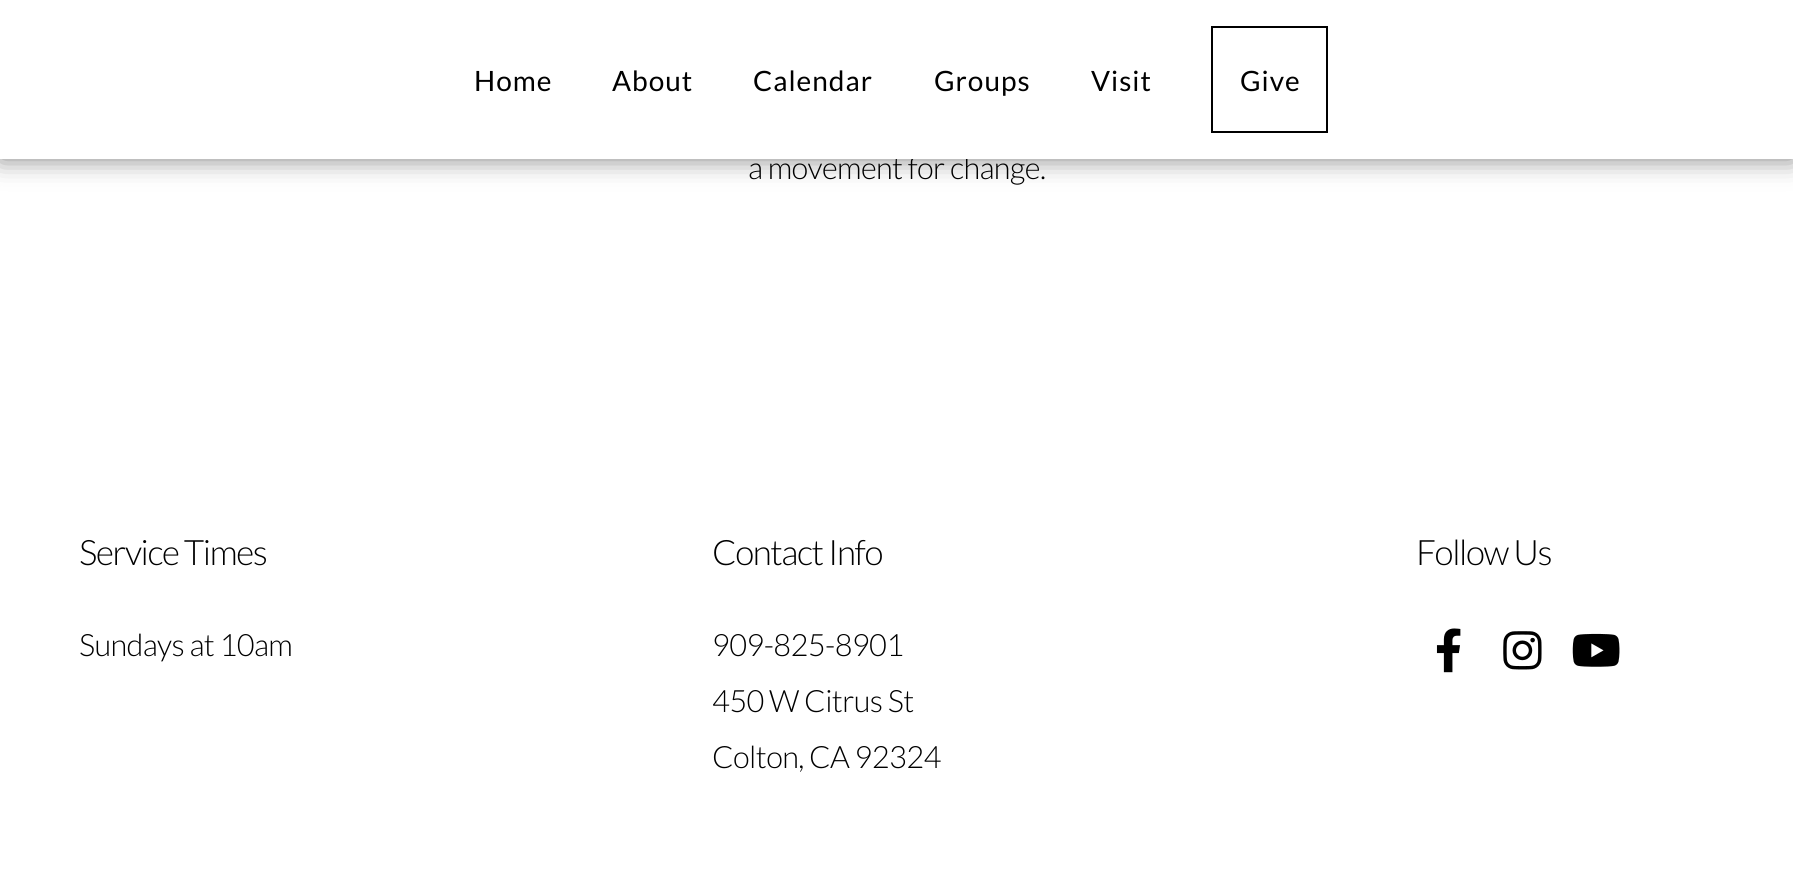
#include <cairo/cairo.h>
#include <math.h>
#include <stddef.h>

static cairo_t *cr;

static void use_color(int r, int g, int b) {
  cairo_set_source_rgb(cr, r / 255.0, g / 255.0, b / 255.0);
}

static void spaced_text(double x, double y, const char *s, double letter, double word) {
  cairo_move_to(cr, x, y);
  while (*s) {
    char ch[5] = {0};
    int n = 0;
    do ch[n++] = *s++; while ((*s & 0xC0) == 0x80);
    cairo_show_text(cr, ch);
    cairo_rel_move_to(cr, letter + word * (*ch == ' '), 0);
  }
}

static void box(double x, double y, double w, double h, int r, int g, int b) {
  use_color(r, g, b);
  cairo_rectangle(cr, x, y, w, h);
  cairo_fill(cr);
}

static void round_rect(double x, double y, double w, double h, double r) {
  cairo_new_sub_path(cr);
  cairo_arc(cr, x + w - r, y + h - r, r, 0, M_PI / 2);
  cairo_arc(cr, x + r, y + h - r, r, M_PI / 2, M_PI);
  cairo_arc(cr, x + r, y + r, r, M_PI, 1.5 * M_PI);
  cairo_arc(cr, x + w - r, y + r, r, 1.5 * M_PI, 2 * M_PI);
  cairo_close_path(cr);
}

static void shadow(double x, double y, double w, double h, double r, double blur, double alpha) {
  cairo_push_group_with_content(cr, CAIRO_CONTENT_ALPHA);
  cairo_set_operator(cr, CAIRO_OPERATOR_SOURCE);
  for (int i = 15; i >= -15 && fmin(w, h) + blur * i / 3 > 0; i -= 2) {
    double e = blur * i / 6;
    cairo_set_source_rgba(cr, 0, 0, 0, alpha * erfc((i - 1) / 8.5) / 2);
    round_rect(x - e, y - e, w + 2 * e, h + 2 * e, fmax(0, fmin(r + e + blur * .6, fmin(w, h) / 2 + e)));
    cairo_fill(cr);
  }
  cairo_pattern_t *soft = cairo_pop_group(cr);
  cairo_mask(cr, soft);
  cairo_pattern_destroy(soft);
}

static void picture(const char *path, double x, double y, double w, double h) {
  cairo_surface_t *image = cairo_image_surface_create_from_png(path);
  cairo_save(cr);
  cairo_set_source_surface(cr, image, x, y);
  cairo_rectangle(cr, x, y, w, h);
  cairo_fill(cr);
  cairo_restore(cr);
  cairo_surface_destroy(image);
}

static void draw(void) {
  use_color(255, 255, 255);
  cairo_paint(cr);
  use_color(0, 0, 0);
  shadow(0, 0, 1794, 159, 0, 13, 0.5);
  picture("img_01.png", 1436, 628, 25, 45);
  picture("img_02.png", 1503, 631, 39, 39);
  picture("img_03.png", 1572, 633, 48, 34);
  cairo_select_font_face(cr, "Lato Light", CAIRO_FONT_SLANT_NORMAL, CAIRO_FONT_WEIGHT_NORMAL);
  cairo_set_font_size(cr, 30.75);
  use_color(0, 0, 0);
  spaced_text(748, 179, "a movement for change.", -0.6, 0);
  box(0, 0, 1793, 159, 255, 255, 255);
  cairo_select_font_face(cr, "Lato", CAIRO_FONT_SLANT_NORMAL, CAIRO_FONT_WEIGHT_NORMAL);
  cairo_set_font_size(cr, 28);
  use_color(0, 0, 0);
  spaced_text(474, 91, "Home", 1, 0);
  spaced_text(612, 91, "About", 1, 0);
  spaced_text(753, 91, "Calendar", 1, 0);
  spaced_text(934, 91, "Groups", 1, 0);
  spaced_text(1091, 91, "Visit", 1, 0);
  cairo_rectangle(cr, 1212, 27, 115, 105);
  cairo_stroke(cr);
  spaced_text(1240, 91, "Give", 1, 0);
  cairo_select_font_face(cr, "Lato Light", CAIRO_FONT_SLANT_NORMAL, CAIRO_FONT_WEIGHT_NORMAL);
  cairo_set_font_size(cr, 35);
  spaced_text(79, 565, "Service Times", -1.4, 0);
  cairo_set_font_size(cr, 30.75);
  spaced_text(79, 656, "Sundays at 10am", -0.6, 0);
  cairo_set_font_size(cr, 35);
  spaced_text(712, 565, "Contact Info", -1.4, 0);
  cairo_set_font_size(cr, 30.75);
  spaced_text(712, 656, "909-825-8901", -0.6, 0);
  spaced_text(712, 712, "450 W Citrus St", -0.6, 0);
  spaced_text(712, 768, "Colton, CA 92324", -0.6, 0);
  cairo_set_font_size(cr, 35);
  spaced_text(1416, 565, "Follow Us", -1.4, 0);
}

int main(void) {
  cairo_surface_t *surface = cairo_image_surface_create(CAIRO_FORMAT_RGB24, 1793, 896);
  cr = cairo_create(surface);
  cairo_font_options_t *options = cairo_font_options_create();
  cairo_font_options_set_hint_metrics(options, CAIRO_HINT_METRICS_OFF);
  cairo_font_options_set_hint_style(options, CAIRO_HINT_STYLE_NONE);
  cairo_set_font_options(cr, options);
  cairo_set_miter_limit(cr, 4);
  draw();
  cairo_surface_write_to_png(surface, "out.png");
  cairo_font_options_destroy(options);
  cairo_destroy(cr);
  cairo_surface_destroy(surface);
  return 0;
}
